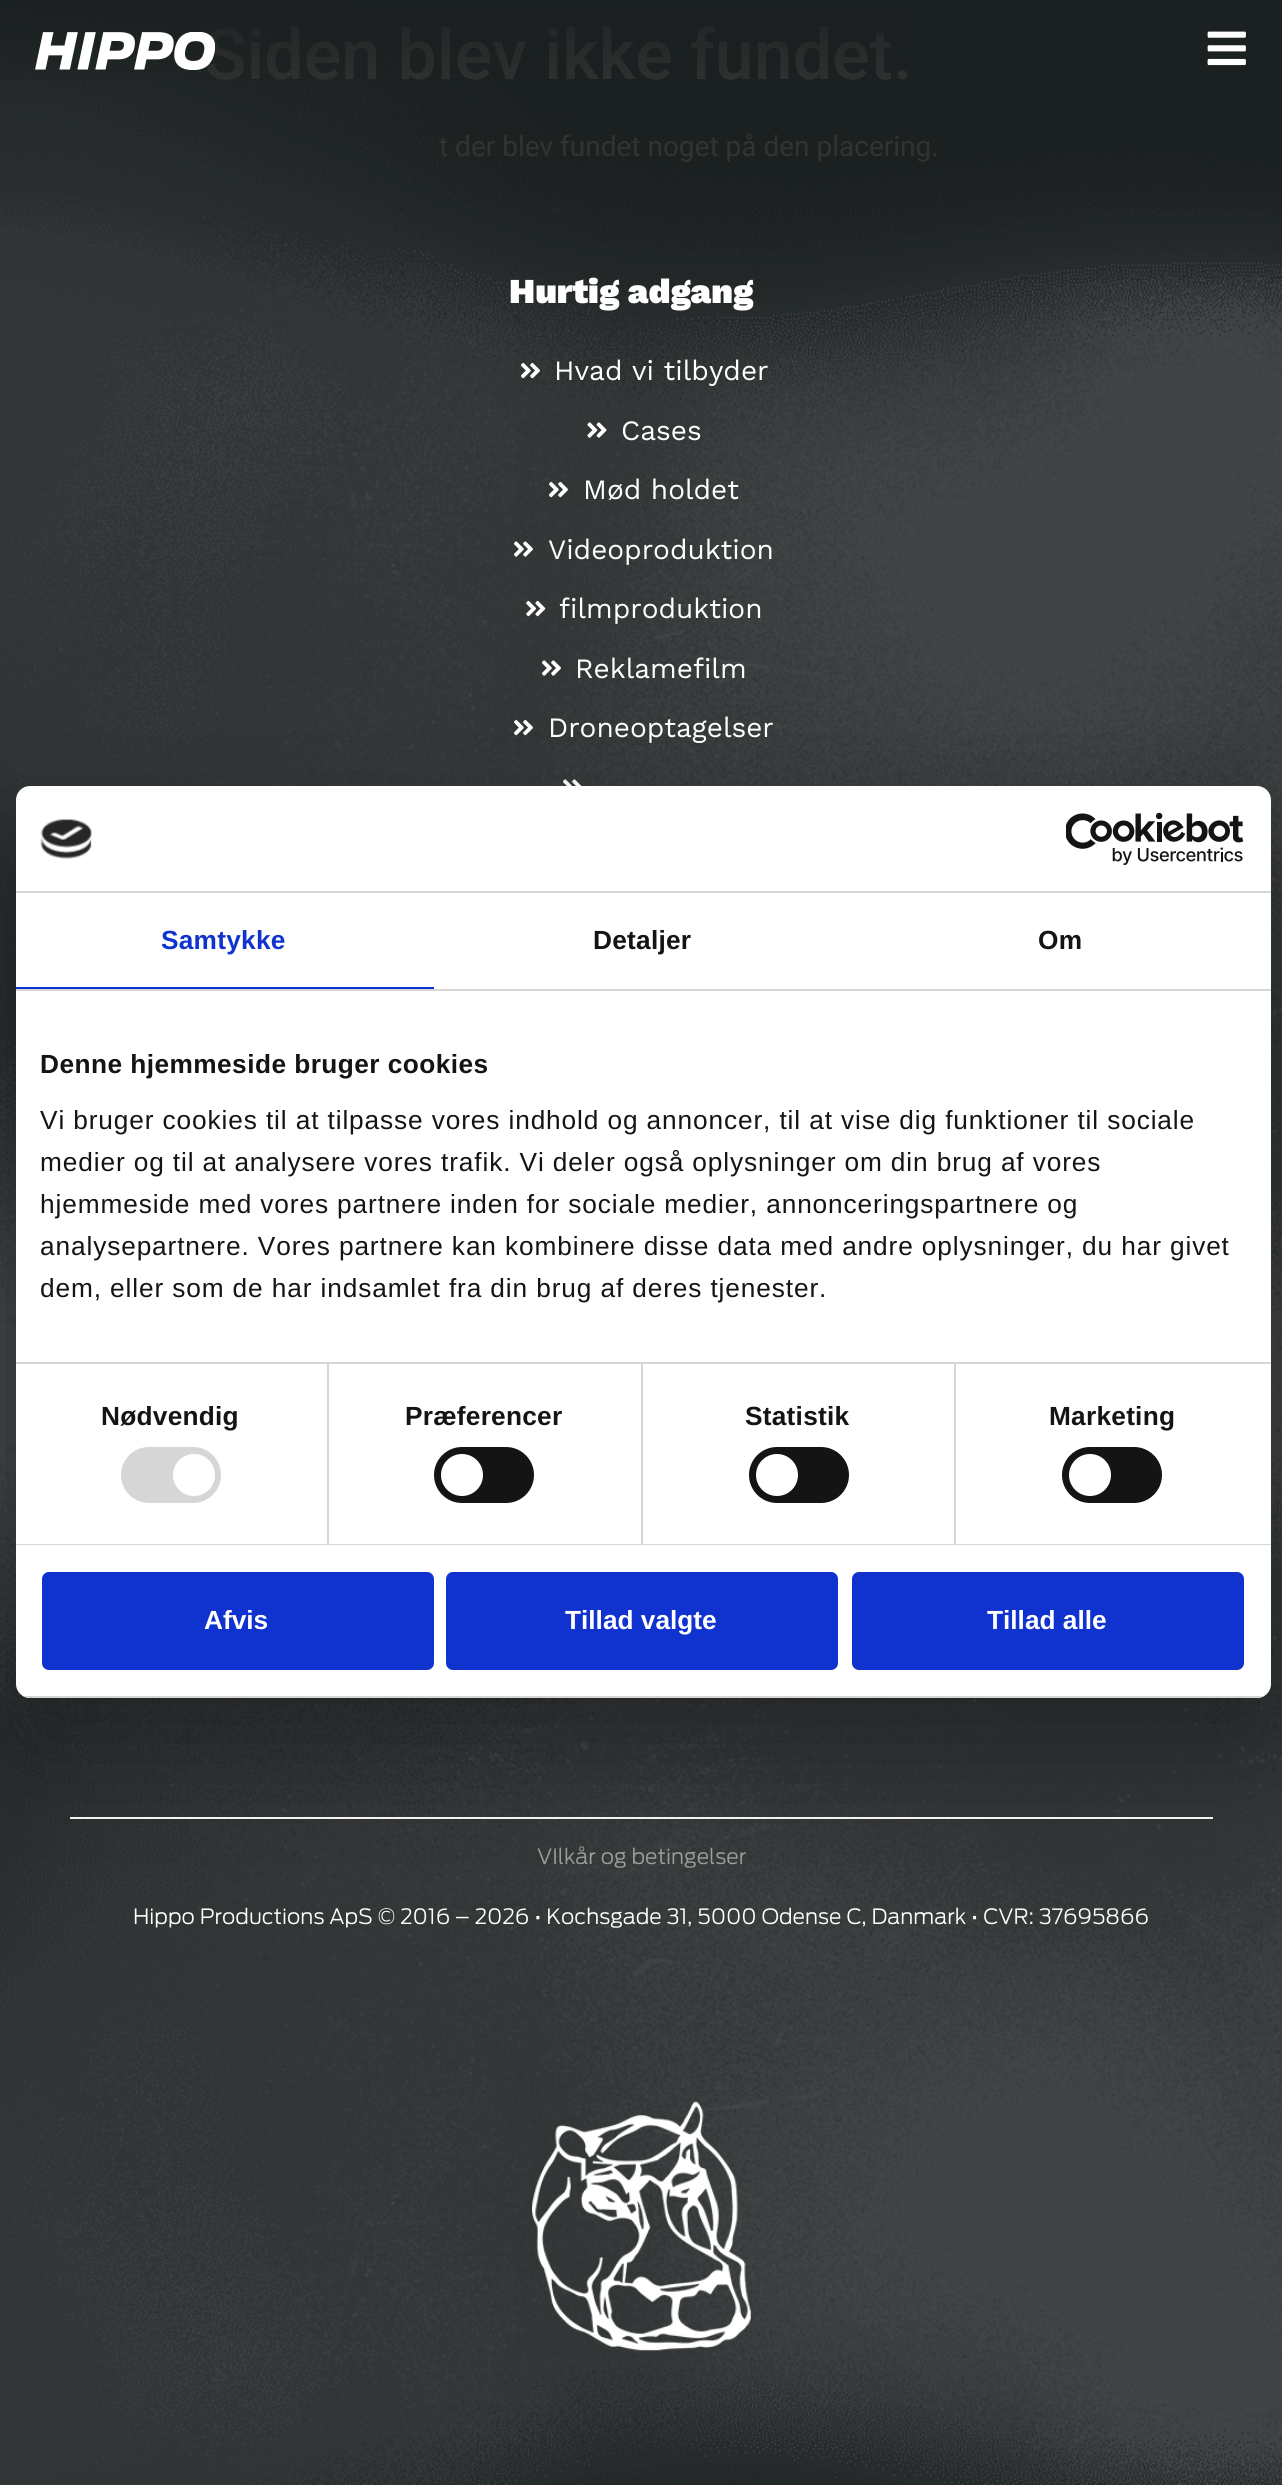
#include <cairo/cairo.h>
#include <math.h>
#include <stddef.h>

static cairo_t *cr;

static void use_color(int r, int g, int b) {
  cairo_set_source_rgb(cr, r / 255.0, g / 255.0, b / 255.0);
}

static void text(double x, double y, const char *s, const char *family, double size, int italic, int bold, int r, int g, int b) {
  cairo_select_font_face(cr, family, italic ? CAIRO_FONT_SLANT_ITALIC : CAIRO_FONT_SLANT_NORMAL,
    bold ? CAIRO_FONT_WEIGHT_BOLD : CAIRO_FONT_WEIGHT_NORMAL);
  cairo_set_font_size(cr, size);
  use_color(r, g, b);
  cairo_move_to(cr, x, y);
  cairo_show_text(cr, s);
}

static void spaced_text(double x, double y, const char *s, double letter, double word) {
  cairo_move_to(cr, x, y);
  while (*s) {
    char ch[5] = {0};
    int n = 0;
    do ch[n++] = *s++; while ((*s & 0xC0) == 0x80);
    cairo_show_text(cr, ch);
    cairo_rel_move_to(cr, letter + word * (*ch == ' '), 0);
  }
}

static void box(double x, double y, double w, double h, int r, int g, int b) {
  use_color(r, g, b);
  cairo_rectangle(cr, x, y, w, h);
  cairo_fill(cr);
}

static void round_rect(double x, double y, double w, double h, double r) {
  cairo_new_sub_path(cr);
  cairo_arc(cr, x + w - r, y + h - r, r, 0, M_PI / 2);
  cairo_arc(cr, x + r, y + h - r, r, M_PI / 2, M_PI);
  cairo_arc(cr, x + r, y + r, r, M_PI, 1.5 * M_PI);
  cairo_arc(cr, x + w - r, y + r, r, 1.5 * M_PI, 2 * M_PI);
  cairo_close_path(cr);
}

static void shadow(double x, double y, double w, double h, double r, double blur, double alpha) {
  cairo_push_group_with_content(cr, CAIRO_CONTENT_ALPHA);
  cairo_set_operator(cr, CAIRO_OPERATOR_SOURCE);
  for (int i = 15; i >= -15 && fmin(w, h) + blur * i / 3 > 0; i -= 2) {
    double e = blur * i / 6;
    cairo_set_source_rgba(cr, 0, 0, 0, alpha * erfc((i - 1) / 8.5) / 2);
    round_rect(x - e, y - e, w + 2 * e, h + 2 * e, fmax(0, fmin(r + e + blur * .6, fmin(w, h) / 2 + e)));
    cairo_fill(cr);
  }
  cairo_pattern_t *soft = cairo_pop_group(cr);
  cairo_mask(cr, soft);
  cairo_pattern_destroy(soft);
}

static void picture(const char *path, double x, double y, double w, double h) {
  cairo_surface_t *image = cairo_image_surface_create_from_png(path);
  cairo_save(cr);
  cairo_set_source_surface(cr, image, x, y);
  cairo_rectangle(cr, x, y, w, h);
  cairo_fill(cr);
  cairo_restore(cr);
  cairo_surface_destroy(image);
}

static void draw(void) {
  cairo_pattern_t *gradient;
  use_color(26, 31, 32);
  cairo_paint(cr);
  picture("img_01.png", 0, 0, 1282, 2485);
  picture("img_02.png", 1207, 31, 39, 35);
  picture("img_04.png", 521, 362, 19, 17);
  picture("img_05.png", 587, 422, 20, 16);
  picture("img_06.png", 549, 481, 19, 17);
  picture("img_07.png", 514, 541, 19, 16);
  picture("img_08.png", 526, 600, 20, 17);
  picture("img_09.png", 542, 660, 19, 16);
  picture("img_10.png", 514, 719, 19, 17);
  picture("img_11.png", 563, 779, 19, 7);
  box(70, 1817, 1143, 2, 255, 255, 255);
  picture("img_12.png", 532, 2101, 219, 250);
  use_color(0, 0, 0);
  shadow(16, 842, 1255, 912, 14, 59.5, 0.3);
  use_color(255, 255, 255);
  round_rect(16, 786, 1255, 912, 14);
  cairo_fill(cr);
  box(16, 891, 1255, 2, 214, 214, 214);
  picture("img_13.png", 40, 819, 53, 40);
  picture("img_14.png", 1066, 812, 178, 53);
  box(16, 989, 1255, 2, 214, 214, 214);
  box(16, 987, 418, 2, 16, 50, 207);
  box(327, 1363, 2, 181, 214, 214, 214);
  box(641, 1363, 2, 181, 214, 214, 214);
  box(954, 1363, 2, 181, 214, 214, 214);
  box(16, 1362, 1255, 2, 214, 214, 214);
  box(16, 1544, 1255, 1, 214, 214, 214);
  round_rect(121, 1447, 100, 56, 28);
  cairo_fill(cr);
  use_color(255, 255, 255);
  cairo_arc(cr, 194, 1475, 21, 0, 2 * M_PI);
  cairo_fill(cr);
  use_color(20, 20, 20);
  round_rect(434, 1447, 100, 56, 28);
  cairo_fill(cr);
  use_color(255, 255, 255);
  cairo_arc(cr, 462, 1475, 21, 0, 2 * M_PI);
  cairo_fill(cr);
  use_color(20, 20, 20);
  round_rect(749, 1447, 100, 56, 28);
  cairo_fill(cr);
  use_color(255, 255, 255);
  cairo_arc(cr, 777, 1475, 21, 0, 2 * M_PI);
  cairo_fill(cr);
  use_color(20, 20, 20);
  round_rect(1062, 1447, 100, 56, 28);
  cairo_fill(cr);
  use_color(255, 255, 255);
  cairo_arc(cr, 1090, 1475, 21, 0, 2 * M_PI);
  cairo_fill(cr);
  cairo_save(cr);
  round_rect(16, 786, 1255, 912, 14);
  cairo_clip(cr);
  box(16, 1696, 1255, 2, 214, 214, 214);
  cairo_restore(cr);
  use_color(16, 50, 207);
  round_rect(44, 1574, 388, 94, 5);
  cairo_fill_preserve(cr);
  cairo_set_line_width(cr, 4);
  cairo_stroke(cr);
  round_rect(448, 1574, 388, 94, 5);
  cairo_fill_preserve(cr);
  cairo_stroke(cr);
  round_rect(854, 1574, 388, 94, 5);
  cairo_fill_preserve(cr);
  cairo_stroke(cr);
  text(204, 79, "Siden blev ikke fundet.", "Roboto Medium", 70, 0, 0, 51, 51, 51);
  gradient = cairo_pattern_create_linear(641, 0, 641, 100);
  cairo_pattern_add_color_stop_rgba(gradient, 0, 0.102, 0.122, 0.125, 0.85);
  cairo_pattern_add_color_stop_rgba(gradient, 1, 0.102, 0.122, 0.125, 0);
  cairo_set_source(cr, gradient);
  cairo_pattern_destroy(gradient);
  cairo_rectangle(cr, 0, 0, 907, 80);
  cairo_fill(cr);
  picture("img_03.png", 35, 32, 180, 38);
  text(439, 156, "t der blev fundet noget på den placering.", "Roboto", 28, 0, 0, 51, 51, 51);
  text(509, 303, "Hurtig adgang", "Work Sans Black", 35, 0, 0, 255, 255, 255);
  text(554, 380, "Hvad vi tilbyder", "Work Sans", 28, 0, 0, 255, 255, 255);
  text(621, 440, "Cases", "Work Sans", 28, 0, 0, 255, 255, 255);
  text(583, 499, "Mød holdet", "Work Sans", 28, 0, 0, 255, 255, 255);
  text(548, 559, "Videoproduktion", "Work Sans", 28, 0, 0, 255, 255, 255);
  text(559, 618, "filmproduktion", "Work Sans", 28, 0, 0, 255, 255, 255);
  text(575, 678, "Reklamefilm", "Work Sans", 28, 0, 0, 255, 255, 255);
  text(548, 737, "Droneoptagelser", "Work Sans", 28, 0, 0, 255, 255, 255);
  text(537, 1864, "VIlkår og betingelser", "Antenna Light", 21, 0, 0, 158, 158, 158);
  text(133, 1924, "Hippo Productions ApS © 2016 – 2026 • Kochsgade 31, 5000 Odense C, Danmark • CVR: 37695866", "Antenna Light", 21, 0, 0, 255, 255, 255);
  cairo_select_font_face(cr, "Liberation Sans", CAIRO_FONT_SLANT_NORMAL, CAIRO_FONT_WEIGHT_BOLD);
  cairo_set_font_size(cr, 26.25);
  use_color(16, 50, 207);
  spaced_text(161, 949, "Samtykke", 0.25, 0);
  use_color(20, 20, 20);
  spaced_text(593, 949, "Detaljer", 0.25, 0);
  spaced_text(1038, 949, "Om", 0.25, 0);
  spaced_text(40, 1073, "Denne hjemmeside bruger cookies", 0.45, 0);
  cairo_select_font_face(cr, "Liberation Sans", CAIRO_FONT_SLANT_NORMAL, CAIRO_FONT_WEIGHT_NORMAL);
  spaced_text(40, 1129, "Vi bruger cookies til at tilpasse vores indhold og annoncer, til at vise dig funktioner til sociale", 0.88, 0);
  spaced_text(40, 1171, "medier og til at analysere vores trafik. Vi deler også oplysninger om din brug af vores", 0.88, 0);
  spaced_text(40, 1213, "hjemmeside med vores partnere inden for sociale medier, annonceringspartnere og", 0.88, 0);
  spaced_text(40, 1255, "analysepartnere. Vores partnere kan kombinere disse data med andre oplysninger, du har givet", 0.88, 0);
  spaced_text(40, 1297, "dem, eller som de har indsamlet fra din brug af deres tjenester.", 0.88, 0);
  cairo_select_font_face(cr, "Liberation Sans", CAIRO_FONT_SLANT_NORMAL, CAIRO_FONT_WEIGHT_BOLD);
  spaced_text(101, 1425, "Nødvendig", 0.25, 0);
  spaced_text(405, 1425, "Præferencer", 0.25, 0);
  spaced_text(745, 1425, "Statistik", 0.25, 0);
  spaced_text(1049, 1425, "Marketing", 0.25, 0);
  text(204, 1629, "Afvis", "Liberation Sans", 26.25, 0, 1, 255, 255, 255);
  text(565, 1629, "Tillad valgte", "Liberation Sans", 26.25, 0, 1, 255, 255, 255);
  text(987, 1629, "Tillad alle", "Liberation Sans", 26.25, 0, 1, 255, 255, 255);
}

int main(void) {
  cairo_surface_t *surface = cairo_image_surface_create(CAIRO_FORMAT_RGB24, 1282, 2485);
  cr = cairo_create(surface);
  cairo_font_options_t *options = cairo_font_options_create();
  cairo_font_options_set_hint_metrics(options, CAIRO_HINT_METRICS_OFF);
  cairo_font_options_set_hint_style(options, CAIRO_HINT_STYLE_NONE);
  cairo_set_font_options(cr, options);
  cairo_set_miter_limit(cr, 4);
  draw();
  cairo_surface_write_to_png(surface, "out.png");
  cairo_font_options_destroy(options);
  cairo_destroy(cr);
  cairo_surface_destroy(surface);
  return 0;
}
